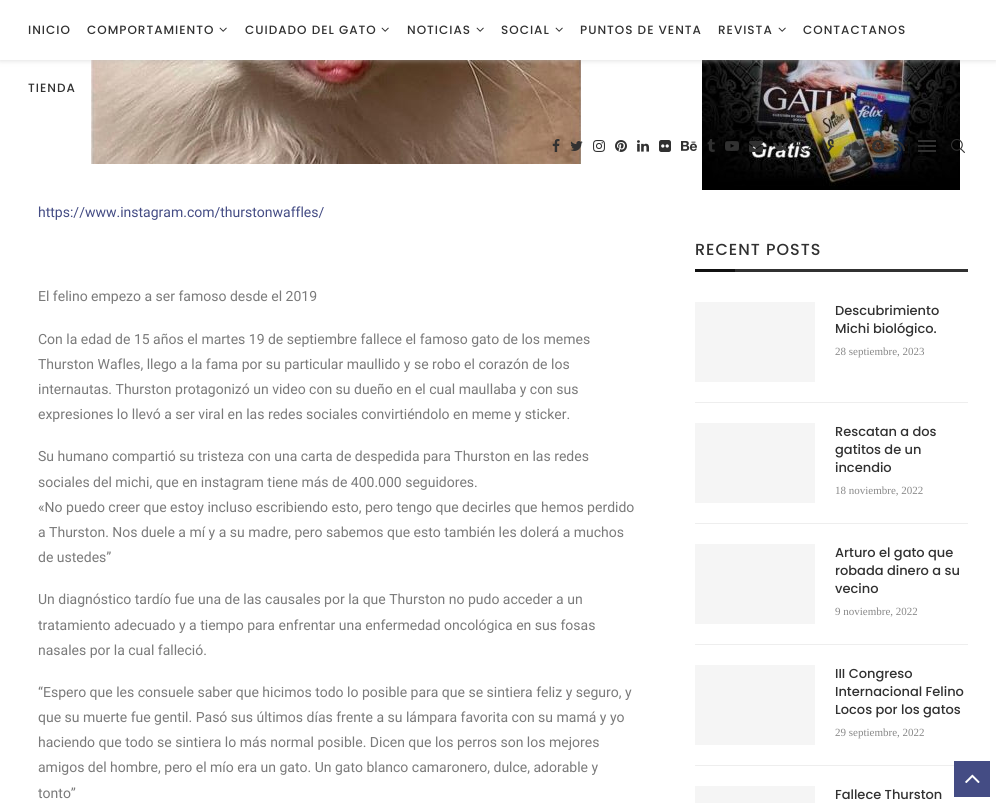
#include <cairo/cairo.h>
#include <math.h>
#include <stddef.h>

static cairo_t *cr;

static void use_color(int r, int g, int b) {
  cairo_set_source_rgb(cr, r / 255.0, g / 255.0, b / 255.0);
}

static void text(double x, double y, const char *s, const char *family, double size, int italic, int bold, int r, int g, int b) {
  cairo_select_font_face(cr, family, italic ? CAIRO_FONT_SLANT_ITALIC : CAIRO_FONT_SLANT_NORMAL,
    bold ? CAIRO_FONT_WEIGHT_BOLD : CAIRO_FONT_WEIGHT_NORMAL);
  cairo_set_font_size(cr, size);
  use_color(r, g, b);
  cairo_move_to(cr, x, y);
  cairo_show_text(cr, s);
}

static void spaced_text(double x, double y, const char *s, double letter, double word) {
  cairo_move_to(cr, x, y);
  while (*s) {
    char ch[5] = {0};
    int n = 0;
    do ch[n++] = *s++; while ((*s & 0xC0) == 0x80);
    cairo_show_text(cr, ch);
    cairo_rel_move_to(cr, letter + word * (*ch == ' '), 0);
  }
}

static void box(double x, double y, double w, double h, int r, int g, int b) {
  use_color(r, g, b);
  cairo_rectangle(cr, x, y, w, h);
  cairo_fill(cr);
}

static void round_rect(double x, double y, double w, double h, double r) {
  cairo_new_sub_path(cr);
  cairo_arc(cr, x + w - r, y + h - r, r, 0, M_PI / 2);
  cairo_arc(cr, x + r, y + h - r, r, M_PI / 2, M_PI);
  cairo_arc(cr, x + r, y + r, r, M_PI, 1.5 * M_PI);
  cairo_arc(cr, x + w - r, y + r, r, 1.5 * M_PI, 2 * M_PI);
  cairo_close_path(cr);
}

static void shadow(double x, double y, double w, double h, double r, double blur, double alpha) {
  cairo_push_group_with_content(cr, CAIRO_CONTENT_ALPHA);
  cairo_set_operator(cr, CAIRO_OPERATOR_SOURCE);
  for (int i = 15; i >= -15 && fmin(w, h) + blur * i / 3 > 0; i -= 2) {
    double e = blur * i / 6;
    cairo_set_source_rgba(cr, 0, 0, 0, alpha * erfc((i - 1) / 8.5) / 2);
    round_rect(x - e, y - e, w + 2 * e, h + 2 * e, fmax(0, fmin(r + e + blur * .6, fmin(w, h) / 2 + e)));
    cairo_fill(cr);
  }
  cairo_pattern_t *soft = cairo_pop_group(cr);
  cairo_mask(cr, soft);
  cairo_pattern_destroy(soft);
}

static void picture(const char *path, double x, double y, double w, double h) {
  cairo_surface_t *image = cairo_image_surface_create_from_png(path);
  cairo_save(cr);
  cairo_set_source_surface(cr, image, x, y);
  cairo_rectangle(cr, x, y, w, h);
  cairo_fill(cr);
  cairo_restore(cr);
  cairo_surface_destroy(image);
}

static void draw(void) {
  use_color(255, 255, 255);
  cairo_paint(cr);
  picture("img_19.png", 91, 60, 490, 104);
  picture("img_20.png", 702, 60, 258, 130);
  use_color(190, 190, 190);
  shadow(0, 1, 996, 60, 0, 2.5, 0.46);
  box(0, 0, 996, 60, 255, 255, 255);
  picture("img_01.png", 219, 27, 8, 5);
  picture("img_01.png", 381, 27, 8, 5);
  picture("img_01.png", 476, 27, 8, 5);
  picture("img_01.png", 555, 27, 8, 5);
  picture("img_01.png", 778, 27, 8, 5);
  picture("img_02.png", 552, 139, 8, 13);
  picture("img_03.png", 570, 141, 13, 10);
  picture("img_04.png", 593, 140, 12, 12);
  picture("img_05.png", 615, 140, 12, 12);
  picture("img_06.png", 637, 140, 12, 12);
  picture("img_07.png", 659, 140, 12, 12);
  picture("img_08.png", 681, 141, 16, 10);
  picture("img_09.png", 707, 139, 8, 13);
  picture("img_10.png", 725, 141, 14, 10);
  picture("img_11.png", 749, 141, 14, 11);
  picture("img_12.png", 773, 142, 15, 9);
  picture("img_13.png", 798, 140, 14, 12);
  picture("img_14.png", 822, 139, 12, 13);
  picture("img_15.png", 844, 142, 18, 8);
  picture("img_16.png", 872, 140, 12, 12);
  picture("img_17.png", 894, 140, 11, 11);
  box(918, 140, 18, 2, 49, 49, 49);
  box(918, 150, 18, 2, 49, 49, 49);
  box(918, 145, 18, 2, 49, 49, 49);
  picture("img_18.png", 951, 139, 14, 14);
  box(735, 269, 233, 3, 49, 49, 49);
  box(695, 269, 40, 3, 17, 17, 17);
  box(695, 402, 273, 1, 238, 238, 238);
  box(695, 302, 120, 80, 245, 245, 245);
  box(695, 523, 273, 1, 238, 238, 238);
  box(695, 423, 120, 80, 245, 245, 245);
  box(695, 644, 273, 1, 238, 238, 238);
  box(695, 544, 120, 80, 245, 245, 245);
  box(695, 765, 259, 1, 238, 238, 238);
  box(695, 665, 120, 80, 245, 245, 245);
  box(695, 786, 120, 17, 245, 245, 245);
  box(954, 761, 36, 36, 68, 76, 132);
  picture("img_21.png", 965, 774, 15, 9);
  cairo_select_font_face(cr, "Poppins Medium", CAIRO_FONT_SLANT_NORMAL, CAIRO_FONT_WEIGHT_NORMAL);
  cairo_set_font_size(cr, 12);
  use_color(49, 49, 49);
  spaced_text(28, 34, "INICIO", 1, 0);
  spaced_text(87, 34, "COMPORTAMIENTO", 1, 0);
  spaced_text(245, 34, "CUIDADO DEL GATO", 1, 0);
  spaced_text(407, 34, "NOTICIAS", 1, 0);
  spaced_text(501, 34, "SOCIAL", 1, 0);
  spaced_text(580, 34, "PUNTOS DE VENTA", 1, 0);
  spaced_text(718, 34, "REVISTA", 1, 0);
  spaced_text(803, 34, "CONTACTANOS", 1, 0);
  spaced_text(28, 92, "TIENDA", 1, 0);
  text(38, 217, "https://www.instagram.com/thurstonwaffles/", "Roboto", 14, 0, 0, 68, 76, 132);
  text(38, 301, "El felino empezo a ser famoso desde el 2019", "Roboto", 14, 0, 0, 122, 122, 122);
  text(38, 344, "Con la edad de 15 años el martes 19 de septiembre fallece el famoso gato de los memes", "Roboto", 14, 0, 0, 122, 122, 122);
  text(38, 369, "Thurston Wafles, llego a la fama por su particular maullido y se robo el corazón de los", "Roboto", 14, 0, 0, 122, 122, 122);
  text(38, 394, "internautas. Thurston protagonizó un video con su dueño en el cual maullaba y con sus", "Roboto", 14, 0, 0, 122, 122, 122);
  text(38, 419, "expresiones lo llevó a ser viral en las redes sociales convirtiéndolo en meme y sticker.", "Roboto", 14, 0, 0, 122, 122, 122);
  text(38, 461, "Su humano compartió su tristeza con una carta de despedida para Thurston en las redes", "Roboto", 14, 0, 0, 122, 122, 122);
  text(38, 487, "sociales del michi, que en instagram tiene más de 400.000 seguidores.", "Roboto", 14, 0, 0, 122, 122, 122);
  text(38, 512, "«No puedo creer que estoy incluso escribiendo esto, pero tengo que decirles que hemos perdido", "Roboto", 14, 0, 0, 122, 122, 122);
  text(38, 537, "a Thurston. Nos duele a mí y a su madre, pero sabemos que esto también les dolerá a muchos", "Roboto", 14, 0, 0, 122, 122, 122);
  text(38, 562, "de ustedes”", "Roboto", 14, 0, 0, 122, 122, 122);
  text(38, 604, "Un diagnóstico tardío fue una de las causales por la que Thurston no pudo acceder a un", "Roboto", 14, 0, 0, 122, 122, 122);
  text(38, 630, "tratamiento adecuado y a tiempo para enfrentar una enfermedad oncológica en sus fosas", "Roboto", 14, 0, 0, 122, 122, 122);
  text(38, 655, "nasales por la cual falleció.", "Roboto", 14, 0, 0, 122, 122, 122);
  text(38, 697, "“Espero que les consuele saber que hicimos todo lo posible para que se sintiera feliz y seguro, y", "Roboto", 14, 0, 0, 122, 122, 122);
  text(38, 722, "que su muerte fue gentil. Pasó sus últimos días frente a su lámpara favorita con su mamá y yo", "Roboto", 14, 0, 0, 122, 122, 122);
  text(38, 747, "haciendo que todo se sintiera lo más normal posible. Dicen que los perros son los mejores", "Roboto", 14, 0, 0, 122, 122, 122);
  text(38, 772, "amigos del hombre, pero el mío era un gato. Un gato blanco camaronero, dulce, adorable y", "Roboto", 14, 0, 0, 122, 122, 122);
  text(38, 798, "tonto”", "Roboto", 14, 0, 0, 122, 122, 122);
  cairo_select_font_face(cr, "Poppins Medium", CAIRO_FONT_SLANT_NORMAL, CAIRO_FONT_WEIGHT_NORMAL);
  cairo_set_font_size(cr, 16);
  use_color(49, 49, 49);
  spaced_text(695, 255, "RECENT POSTS", 1, 0);
  text(835, 315, "Descubrimiento", "Poppins Medium", 13, 0, 0, 49, 49, 49);
  text(835, 333, "Michi biológico.", "Poppins Medium", 13, 0, 0, 49, 49, 49);
  text(835, 355, "28 septiembre, 2023", "Liberation Serif", 11, 0, 0, 136, 136, 136);
  text(835, 436, "Rescatan a dos", "Poppins Medium", 13, 0, 0, 49, 49, 49);
  text(835, 454, "gatitos de un", "Poppins Medium", 13, 0, 0, 49, 49, 49);
  text(835, 472, "incendio", "Poppins Medium", 13, 0, 0, 49, 49, 49);
  text(835, 494, "18 noviembre, 2022", "Liberation Serif", 11, 0, 0, 136, 136, 136);
  text(835, 557, "Arturo el gato que", "Poppins Medium", 13, 0, 0, 49, 49, 49);
  text(835, 575, "robada dinero a su", "Poppins Medium", 13, 0, 0, 49, 49, 49);
  text(835, 593, "vecino", "Poppins Medium", 13, 0, 0, 49, 49, 49);
  text(835, 615, "9 noviembre, 2022", "Liberation Serif", 11, 0, 0, 136, 136, 136);
  text(835, 678, "III Congreso", "Poppins Medium", 13, 0, 0, 49, 49, 49);
  text(835, 696, "Internacional Felino", "Poppins Medium", 13, 0, 0, 49, 49, 49);
  text(835, 714, "Locos por los gatos", "Poppins Medium", 13, 0, 0, 49, 49, 49);
  text(835, 736, "29 septiembre, 2022", "Liberation Serif", 11, 0, 0, 136, 136, 136);
  text(835, 799, "Fallece Thurston", "Poppins Medium", 13, 0, 0, 49, 49, 49);
}

int main(void) {
  cairo_surface_t *surface = cairo_image_surface_create(CAIRO_FORMAT_RGB24, 996, 803);
  cr = cairo_create(surface);
  cairo_font_options_t *options = cairo_font_options_create();
  cairo_font_options_set_hint_metrics(options, CAIRO_HINT_METRICS_OFF);
  cairo_font_options_set_hint_style(options, CAIRO_HINT_STYLE_NONE);
  cairo_set_font_options(cr, options);
  cairo_set_miter_limit(cr, 4);
  draw();
  cairo_surface_write_to_png(surface, "out.png");
  cairo_font_options_destroy(options);
  cairo_destroy(cr);
  cairo_surface_destroy(surface);
  return 0;
}
